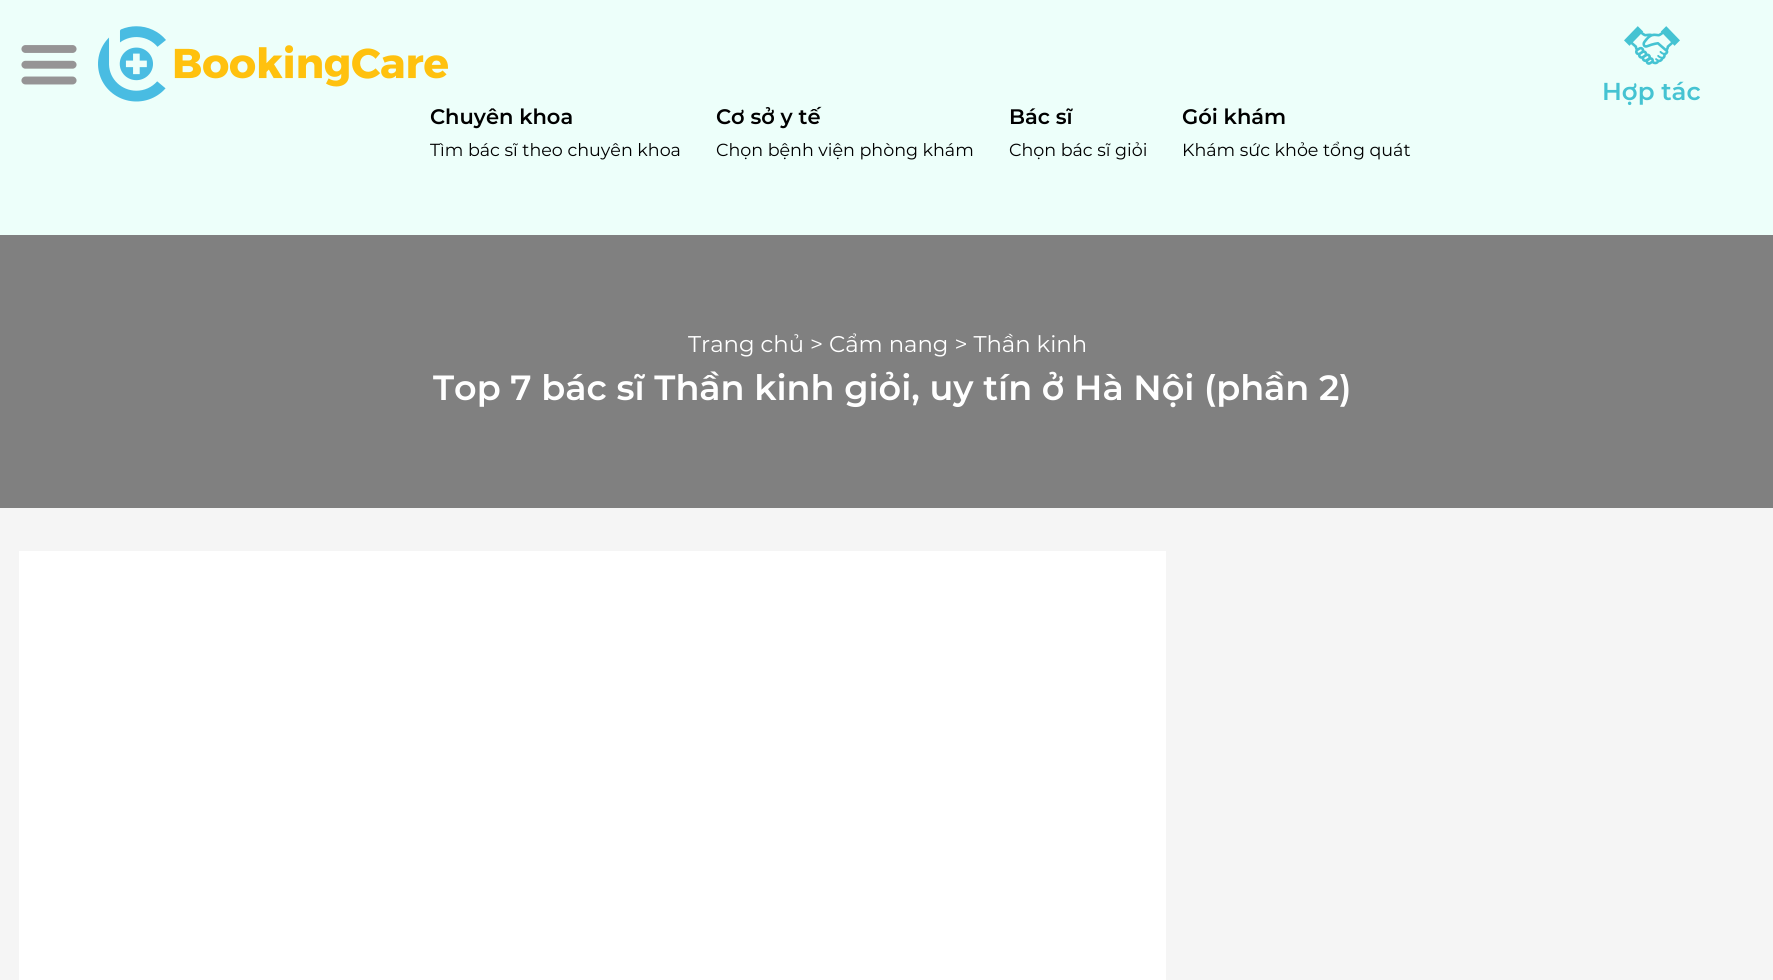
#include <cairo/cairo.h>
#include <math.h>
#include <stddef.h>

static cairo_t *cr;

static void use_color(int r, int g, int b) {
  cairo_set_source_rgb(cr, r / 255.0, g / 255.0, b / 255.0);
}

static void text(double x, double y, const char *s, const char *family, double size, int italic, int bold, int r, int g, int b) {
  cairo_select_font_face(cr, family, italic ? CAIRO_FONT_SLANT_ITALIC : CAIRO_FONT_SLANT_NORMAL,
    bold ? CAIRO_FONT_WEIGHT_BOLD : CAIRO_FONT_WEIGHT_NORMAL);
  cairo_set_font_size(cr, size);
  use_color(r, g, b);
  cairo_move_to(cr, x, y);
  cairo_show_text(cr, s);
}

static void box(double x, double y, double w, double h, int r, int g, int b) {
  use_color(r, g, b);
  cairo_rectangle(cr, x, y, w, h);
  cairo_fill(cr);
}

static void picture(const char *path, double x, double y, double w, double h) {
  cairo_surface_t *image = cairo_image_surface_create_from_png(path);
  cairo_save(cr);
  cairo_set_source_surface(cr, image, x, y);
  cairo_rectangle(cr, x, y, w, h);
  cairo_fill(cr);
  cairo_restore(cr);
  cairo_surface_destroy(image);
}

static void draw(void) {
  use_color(128, 128, 128);
  cairo_paint(cr);
  box(0, 0, 1773, 235, 237, 255, 250);
  picture("img_01.png", 21, 45, 56, 40);
  picture("img_02.png", 98, 26, 350, 76);
  picture("img_03.png", 1624, 26, 56, 39);
  box(0, 508, 1773, 472, 245, 245, 245);
  box(19, 551, 1147, 429, 255, 255, 255);
  text(1602, 100, "Hợp tác", "Montserrat SemiBold", 24.5, 0, 0, 69, 195, 210);
  text(430, 124, "Chuyên khoa", "Montserrat SemiBold", 21, 0, 0, 0, 0, 0);
  text(430, 156, "Tìm bác sĩ theo chuyên khoa", "Montserrat", 17.5, 0, 0, 0, 0, 0);
  text(716, 124, "Cơ sở y tế", "Montserrat SemiBold", 21, 0, 0, 0, 0, 0);
  text(716, 156, "Chọn bệnh viện phòng khám", "Montserrat", 17.5, 0, 0, 0, 0, 0);
  text(1009, 124, "Bác sĩ", "Montserrat SemiBold", 21, 0, 0, 0, 0, 0);
  text(1009, 156, "Chọn bác sĩ giỏi", "Montserrat", 17.5, 0, 0, 0, 0, 0);
  text(1182, 124, "Gói khám", "Montserrat SemiBold", 21, 0, 0, 0, 0, 0);
  text(1182, 156, "Khám sức khỏe tổng quát", "Montserrat", 17.5, 0, 0, 0, 0, 0);
  text(688, 352, "Trang chủ > Cẩm nang > Thần kinh", "Montserrat", 22.75, 0, 0, 255, 255, 255);
  text(433, 400, "Top 7 bác sĩ Thần kinh giỏi, uy tín ở Hà Nội (phần 2)", "Montserrat SemiBold", 35, 0, 0, 255, 255, 255);
}

int main(void) {
  cairo_surface_t *surface = cairo_image_surface_create(CAIRO_FORMAT_RGB24, 1773, 980);
  cr = cairo_create(surface);
  cairo_font_options_t *options = cairo_font_options_create();
  cairo_font_options_set_hint_metrics(options, CAIRO_HINT_METRICS_OFF);
  cairo_font_options_set_hint_style(options, CAIRO_HINT_STYLE_NONE);
  cairo_set_font_options(cr, options);
  cairo_set_miter_limit(cr, 4);
  draw();
  cairo_surface_write_to_png(surface, "out.png");
  cairo_font_options_destroy(options);
  cairo_destroy(cr);
  cairo_surface_destroy(surface);
  return 0;
}
